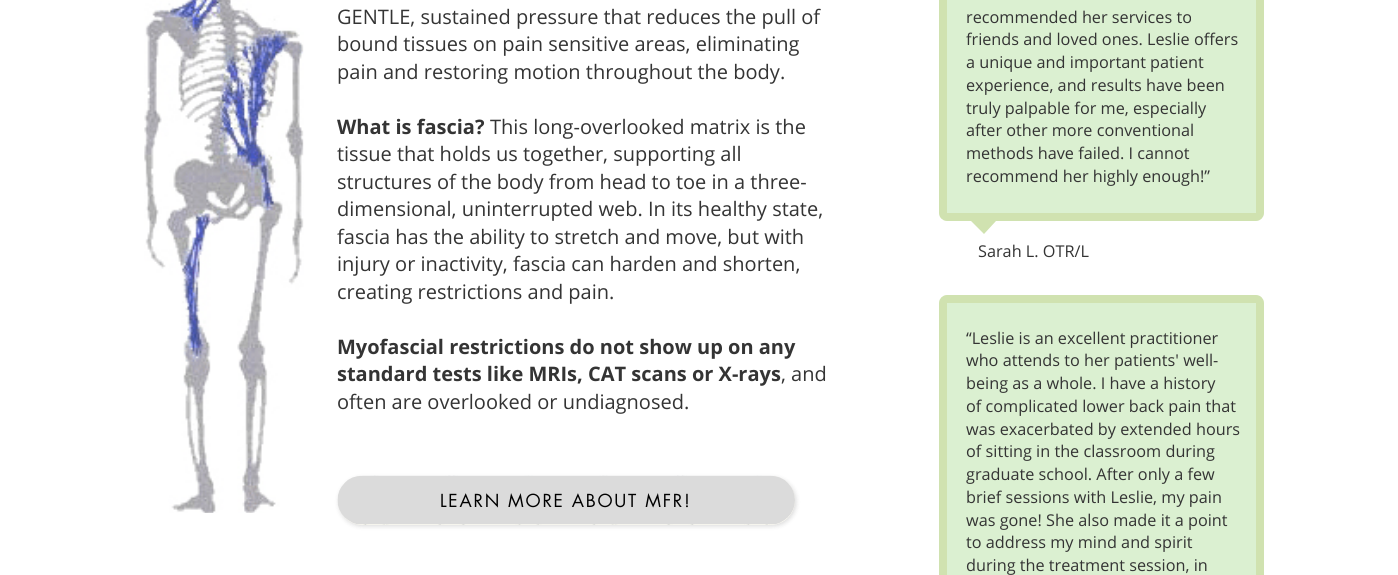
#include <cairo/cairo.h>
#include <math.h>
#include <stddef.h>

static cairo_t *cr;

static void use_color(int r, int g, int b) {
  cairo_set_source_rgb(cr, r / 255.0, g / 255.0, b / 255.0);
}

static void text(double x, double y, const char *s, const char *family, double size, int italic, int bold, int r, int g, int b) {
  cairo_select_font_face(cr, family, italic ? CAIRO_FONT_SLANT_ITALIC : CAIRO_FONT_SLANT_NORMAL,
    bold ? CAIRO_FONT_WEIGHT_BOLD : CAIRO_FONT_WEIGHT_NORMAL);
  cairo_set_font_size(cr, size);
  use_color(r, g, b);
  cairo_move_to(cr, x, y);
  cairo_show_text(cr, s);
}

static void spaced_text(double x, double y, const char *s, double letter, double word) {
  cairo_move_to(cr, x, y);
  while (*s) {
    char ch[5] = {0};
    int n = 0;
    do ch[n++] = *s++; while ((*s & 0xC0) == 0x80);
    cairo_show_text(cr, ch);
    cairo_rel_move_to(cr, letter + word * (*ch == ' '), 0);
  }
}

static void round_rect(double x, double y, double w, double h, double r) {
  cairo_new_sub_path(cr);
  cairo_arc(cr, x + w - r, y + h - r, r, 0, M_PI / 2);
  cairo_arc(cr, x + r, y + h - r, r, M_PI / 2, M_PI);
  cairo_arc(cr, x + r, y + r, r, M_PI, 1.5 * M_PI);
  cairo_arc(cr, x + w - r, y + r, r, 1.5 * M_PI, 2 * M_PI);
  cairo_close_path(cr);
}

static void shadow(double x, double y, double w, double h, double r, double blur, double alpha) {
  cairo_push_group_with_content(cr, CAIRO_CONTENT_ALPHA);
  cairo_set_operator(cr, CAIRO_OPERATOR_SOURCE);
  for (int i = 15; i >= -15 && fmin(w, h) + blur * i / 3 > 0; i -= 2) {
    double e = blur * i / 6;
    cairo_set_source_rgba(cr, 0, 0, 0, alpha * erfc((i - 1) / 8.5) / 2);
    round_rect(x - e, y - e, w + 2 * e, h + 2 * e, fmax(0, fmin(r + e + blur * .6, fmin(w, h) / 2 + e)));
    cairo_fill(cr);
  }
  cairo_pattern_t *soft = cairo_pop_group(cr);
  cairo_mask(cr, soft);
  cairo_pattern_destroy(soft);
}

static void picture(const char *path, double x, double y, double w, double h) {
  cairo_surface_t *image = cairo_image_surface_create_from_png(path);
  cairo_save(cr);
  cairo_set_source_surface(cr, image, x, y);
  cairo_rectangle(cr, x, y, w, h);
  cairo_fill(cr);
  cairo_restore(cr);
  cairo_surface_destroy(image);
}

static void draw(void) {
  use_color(255, 255, 255);
  cairo_paint(cr);
  picture("img_01.png", 144, 0, 160, 513);
  use_color(219, 240, 209);
  round_rect(943, -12, 317, 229, 4);
  cairo_fill_preserve(cr);
  use_color(208, 226, 176);
  cairo_set_line_width(cr, 8);
  cairo_stroke(cr);
  cairo_new_path(cr);
  cairo_move_to(cr, 971, 221);
  cairo_line_to(cr, 996, 221);
  cairo_line_to(cr, 984, 234);
  cairo_close_path(cr);
  cairo_fill(cr);
  use_color(0, 0, 0);
  shadow(339, 478, 457, 48, 24, 2.5, 0.15);
  use_color(255, 253, 244);
  round_rect(338, 476, 457, 49, 24.5);
  cairo_fill(cr);
  picture("img_02.png", 337, 475, 458, 50);
  use_color(219, 240, 209);
  round_rect(943, 299, 317, 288, 4);
  cairo_fill_preserve(cr);
  use_color(208, 226, 176);
  cairo_stroke(cr);
  text(337, 24, "GENTLE, sustained pressure that reduces the pull of", "Open Sans", 20, 0, 0, 52, 52, 52);
  text(337, 51, "bound tissues on pain sensitive areas, eliminating", "Open Sans", 20, 0, 0, 52, 52, 52);
  text(337, 79, "pain and restoring motion throughout the body.", "Open Sans", 20, 0, 0, 52, 52, 52);
  text(337, 134, "What is fascia?", "Open Sans", 20, 0, 1, 52, 52, 52);
  text(490, 134, "This long-overlooked matrix is the", "Open Sans", 20, 0, 0, 52, 52, 52);
  text(337, 161, "tissue that holds us together, supporting all", "Open Sans", 20, 0, 0, 52, 52, 52);
  text(337, 189, "structures of the body from head to toe in a three-", "Open Sans", 20, 0, 0, 52, 52, 52);
  text(337, 216, "dimensional, uninterrupted web. In its healthy state,", "Open Sans", 20, 0, 0, 52, 52, 52);
  text(337, 244, "fascia has the ability to stretch and move, but with", "Open Sans", 20, 0, 0, 52, 52, 52);
  text(337, 271, "injury or inactivity, fascia can harden and shorten,", "Open Sans", 20, 0, 0, 52, 52, 52);
  text(337, 299, "creating restrictions and pain.", "Open Sans", 20, 0, 0, 52, 52, 52);
  text(337, 354, "Myofascial restrictions do not show up on any", "Open Sans", 20, 0, 1, 52, 52, 52);
  text(337, 381, "standard tests like MRIs, CAT scans or X-rays", "Open Sans", 20, 0, 1, 52, 52, 52);
  text(781, 381, ", and", "Open Sans", 20, 0, 0, 52, 52, 52);
  text(337, 409, "often are overlooked or undiagnosed.", "Open Sans", 20, 0, 0, 52, 52, 52);
  text(966, 23, "recommended her services to", "Open Sans", 16.25, 0, 0, 52, 52, 52);
  text(966, 45, "friends and loved ones. Leslie offers", "Open Sans", 16.25, 0, 0, 52, 52, 52);
  text(966, 68, "a unique and important patient", "Open Sans", 16.25, 0, 0, 52, 52, 52);
  text(966, 91, "experience, and results have been", "Open Sans", 16.25, 0, 0, 52, 52, 52);
  text(966, 114, "truly palpable for me, especially", "Open Sans", 16.25, 0, 0, 52, 52, 52);
  text(966, 136, "after other more conventional", "Open Sans", 16.25, 0, 0, 52, 52, 52);
  text(966, 159, "methods have failed. I cannot", "Open Sans", 16.25, 0, 0, 52, 52, 52);
  text(966, 182, "recommend her highly enough!”", "Open Sans", 16.25, 0, 0, 52, 52, 52);
  text(978, 257, "Sarah L. OTR/L", "Open Sans", 16.25, 0, 0, 52, 52, 52);
  cairo_select_font_face(cr, "futura", CAIRO_FONT_SLANT_NORMAL, CAIRO_FONT_WEIGHT_NORMAL);
  cairo_set_font_size(cr, 17.5);
  use_color(0, 0, 0);
  spaced_text(440, 507, "LEARN MORE ABOUT MFR!", 1.75, 0);
  text(966, 344, "“Leslie is an excellent practitioner", "Open Sans", 16.25, 0, 0, 52, 52, 52);
  text(966, 366, "who attends to her patients' well-", "Open Sans", 16.25, 0, 0, 52, 52, 52);
  text(966, 389, "being as a whole. I have a history", "Open Sans", 16.25, 0, 0, 52, 52, 52);
  text(966, 412, "of complicated lower back pain that", "Open Sans", 16.25, 0, 0, 52, 52, 52);
  text(966, 435, "was exacerbated by extended hours", "Open Sans", 16.25, 0, 0, 52, 52, 52);
  text(966, 457, "of sitting in the classroom during", "Open Sans", 16.25, 0, 0, 52, 52, 52);
  text(966, 480, "graduate school. After only a few", "Open Sans", 16.25, 0, 0, 52, 52, 52);
  text(966, 503, "brief sessions with Leslie, my pain", "Open Sans", 16.25, 0, 0, 52, 52, 52);
  text(966, 526, "was gone! She also made it a point", "Open Sans", 16.25, 0, 0, 52, 52, 52);
  text(966, 548, "to address my mind and spirit", "Open Sans", 16.25, 0, 0, 52, 52, 52);
  text(966, 571, "during the treatment session, in", "Open Sans", 16.25, 0, 0, 52, 52, 52);
}

int main(void) {
  cairo_surface_t *surface = cairo_image_surface_create(CAIRO_FORMAT_RGB24, 1398, 575);
  cr = cairo_create(surface);
  cairo_font_options_t *options = cairo_font_options_create();
  cairo_font_options_set_hint_metrics(options, CAIRO_HINT_METRICS_OFF);
  cairo_font_options_set_hint_style(options, CAIRO_HINT_STYLE_NONE);
  cairo_set_font_options(cr, options);
  cairo_set_miter_limit(cr, 4);
  draw();
  cairo_surface_write_to_png(surface, "out.png");
  cairo_font_options_destroy(options);
  cairo_destroy(cr);
  cairo_surface_destroy(surface);
  return 0;
}
